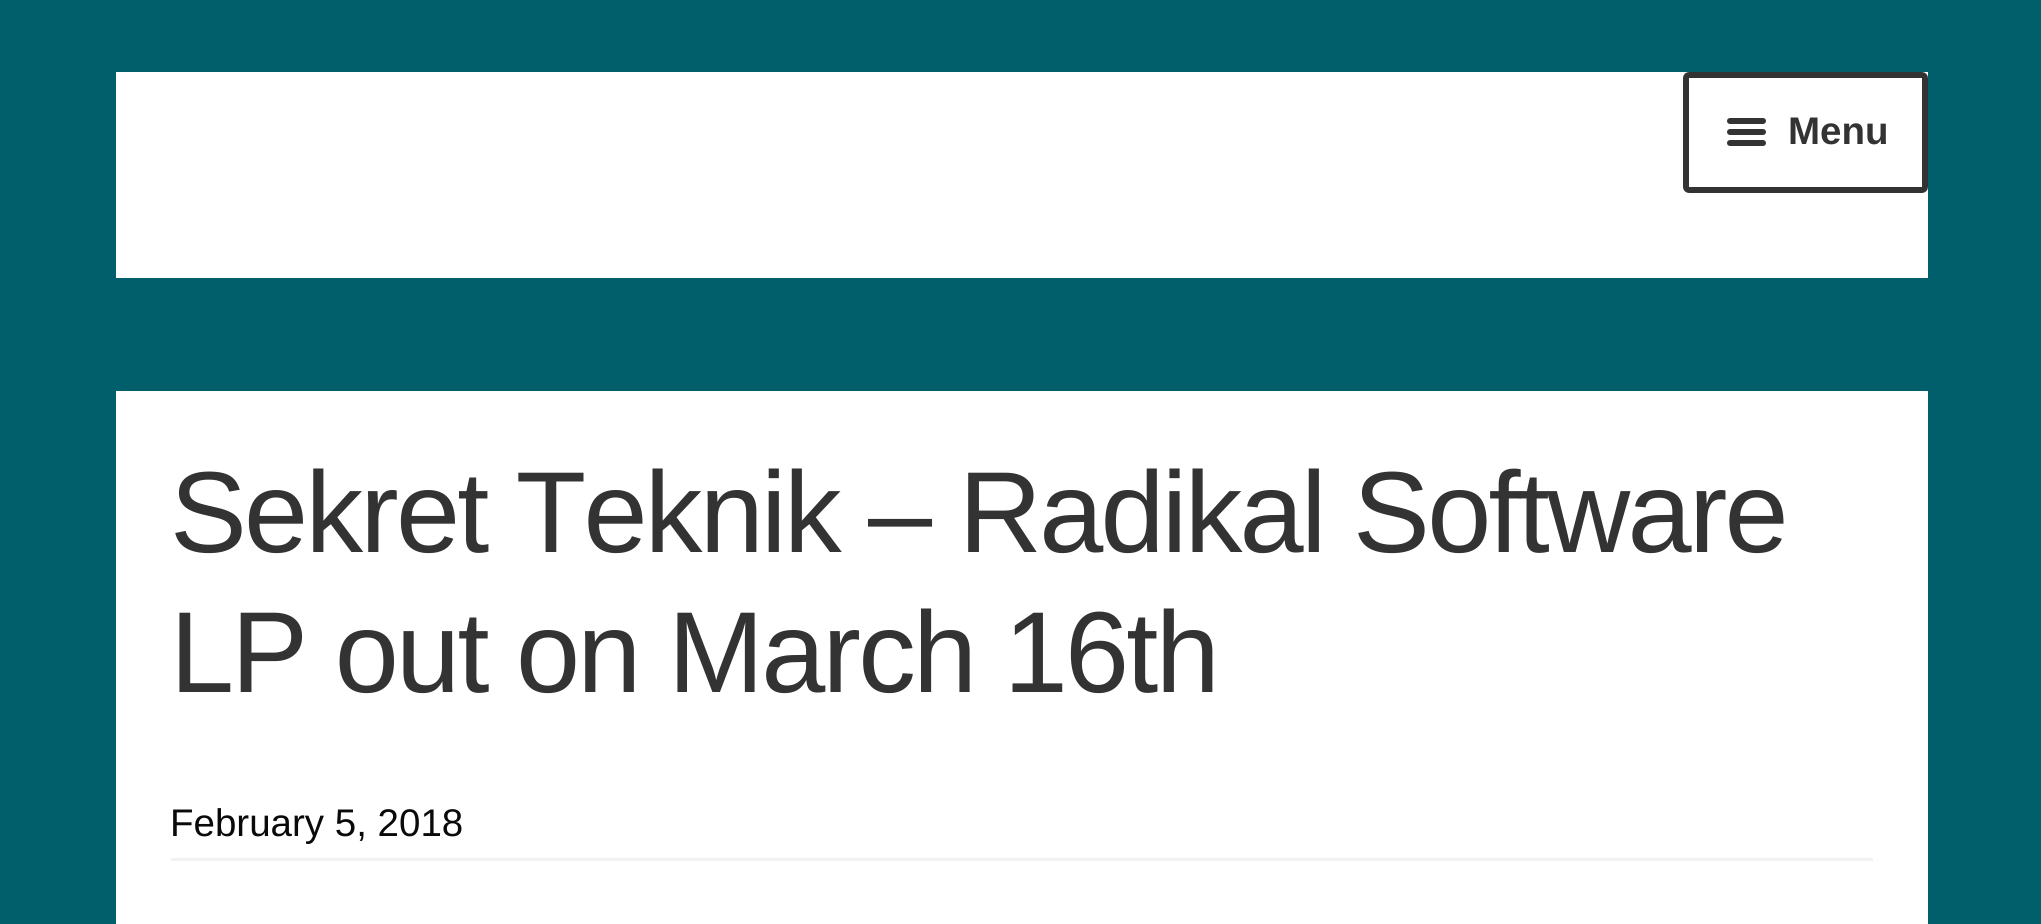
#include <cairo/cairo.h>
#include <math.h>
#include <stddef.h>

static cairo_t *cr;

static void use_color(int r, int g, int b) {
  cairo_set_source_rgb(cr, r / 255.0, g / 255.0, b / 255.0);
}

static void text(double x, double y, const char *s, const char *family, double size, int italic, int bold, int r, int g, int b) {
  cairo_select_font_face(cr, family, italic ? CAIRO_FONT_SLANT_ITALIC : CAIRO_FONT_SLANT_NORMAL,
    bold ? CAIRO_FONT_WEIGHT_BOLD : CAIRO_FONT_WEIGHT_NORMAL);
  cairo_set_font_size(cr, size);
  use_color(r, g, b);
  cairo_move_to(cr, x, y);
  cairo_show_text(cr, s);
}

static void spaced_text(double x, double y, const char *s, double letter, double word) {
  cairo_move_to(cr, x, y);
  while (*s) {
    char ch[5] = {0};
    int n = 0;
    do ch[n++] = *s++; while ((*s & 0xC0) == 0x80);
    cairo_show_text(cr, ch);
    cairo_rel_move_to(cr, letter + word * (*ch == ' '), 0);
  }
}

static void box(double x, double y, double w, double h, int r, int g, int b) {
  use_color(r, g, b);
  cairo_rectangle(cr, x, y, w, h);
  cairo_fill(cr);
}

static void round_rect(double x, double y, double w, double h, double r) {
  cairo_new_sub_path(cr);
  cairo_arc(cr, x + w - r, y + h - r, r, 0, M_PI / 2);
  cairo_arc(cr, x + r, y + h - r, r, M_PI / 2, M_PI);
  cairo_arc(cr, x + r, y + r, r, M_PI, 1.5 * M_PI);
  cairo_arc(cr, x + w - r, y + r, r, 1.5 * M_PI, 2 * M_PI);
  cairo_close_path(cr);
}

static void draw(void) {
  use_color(0, 95, 106);
  cairo_paint(cr);
  box(116, 72, 1812, 206, 255, 255, 255);
  round_rect(1686, 75, 239, 115, 3);
  use_color(51, 51, 51);
  cairo_set_line_width(cr, 6);
  cairo_stroke(cr);
  round_rect(1727, 118, 39, 6, 3);
  cairo_fill(cr);
  round_rect(1727, 129, 39, 6, 3);
  cairo_fill(cr);
  round_rect(1727, 140, 39, 6, 3);
  cairo_fill(cr);
  box(116, 391, 1812, 533, 255, 255, 255);
  box(171, 858, 1702, 3, 242, 242, 242);
  text(1788, 144, "Menu", "Liberation Sans", 38.5, 0, 1, 51, 51, 51);
  cairo_select_font_face(cr, "Liberation Sans", CAIRO_FONT_SLANT_NORMAL, CAIRO_FONT_WEIGHT_NORMAL);
  cairo_set_font_size(cr, 115.25);
  spaced_text(170, 552, "Sekret Teknik – Radikal Software", -2.75, 0);
  spaced_text(170, 692, "LP out on March 16th", -2.75, 0);
  text(170, 836, "February 5, 2018", "Liberation Sans", 38.5, 0, 0, 10, 10, 10);
}

int main(void) {
  cairo_surface_t *surface = cairo_image_surface_create(CAIRO_FORMAT_RGB24, 2041, 924);
  cr = cairo_create(surface);
  cairo_font_options_t *options = cairo_font_options_create();
  cairo_font_options_set_hint_metrics(options, CAIRO_HINT_METRICS_OFF);
  cairo_font_options_set_hint_style(options, CAIRO_HINT_STYLE_NONE);
  cairo_set_font_options(cr, options);
  cairo_set_miter_limit(cr, 4);
  draw();
  cairo_surface_write_to_png(surface, "out.png");
  cairo_font_options_destroy(options);
  cairo_destroy(cr);
  cairo_surface_destroy(surface);
  return 0;
}
